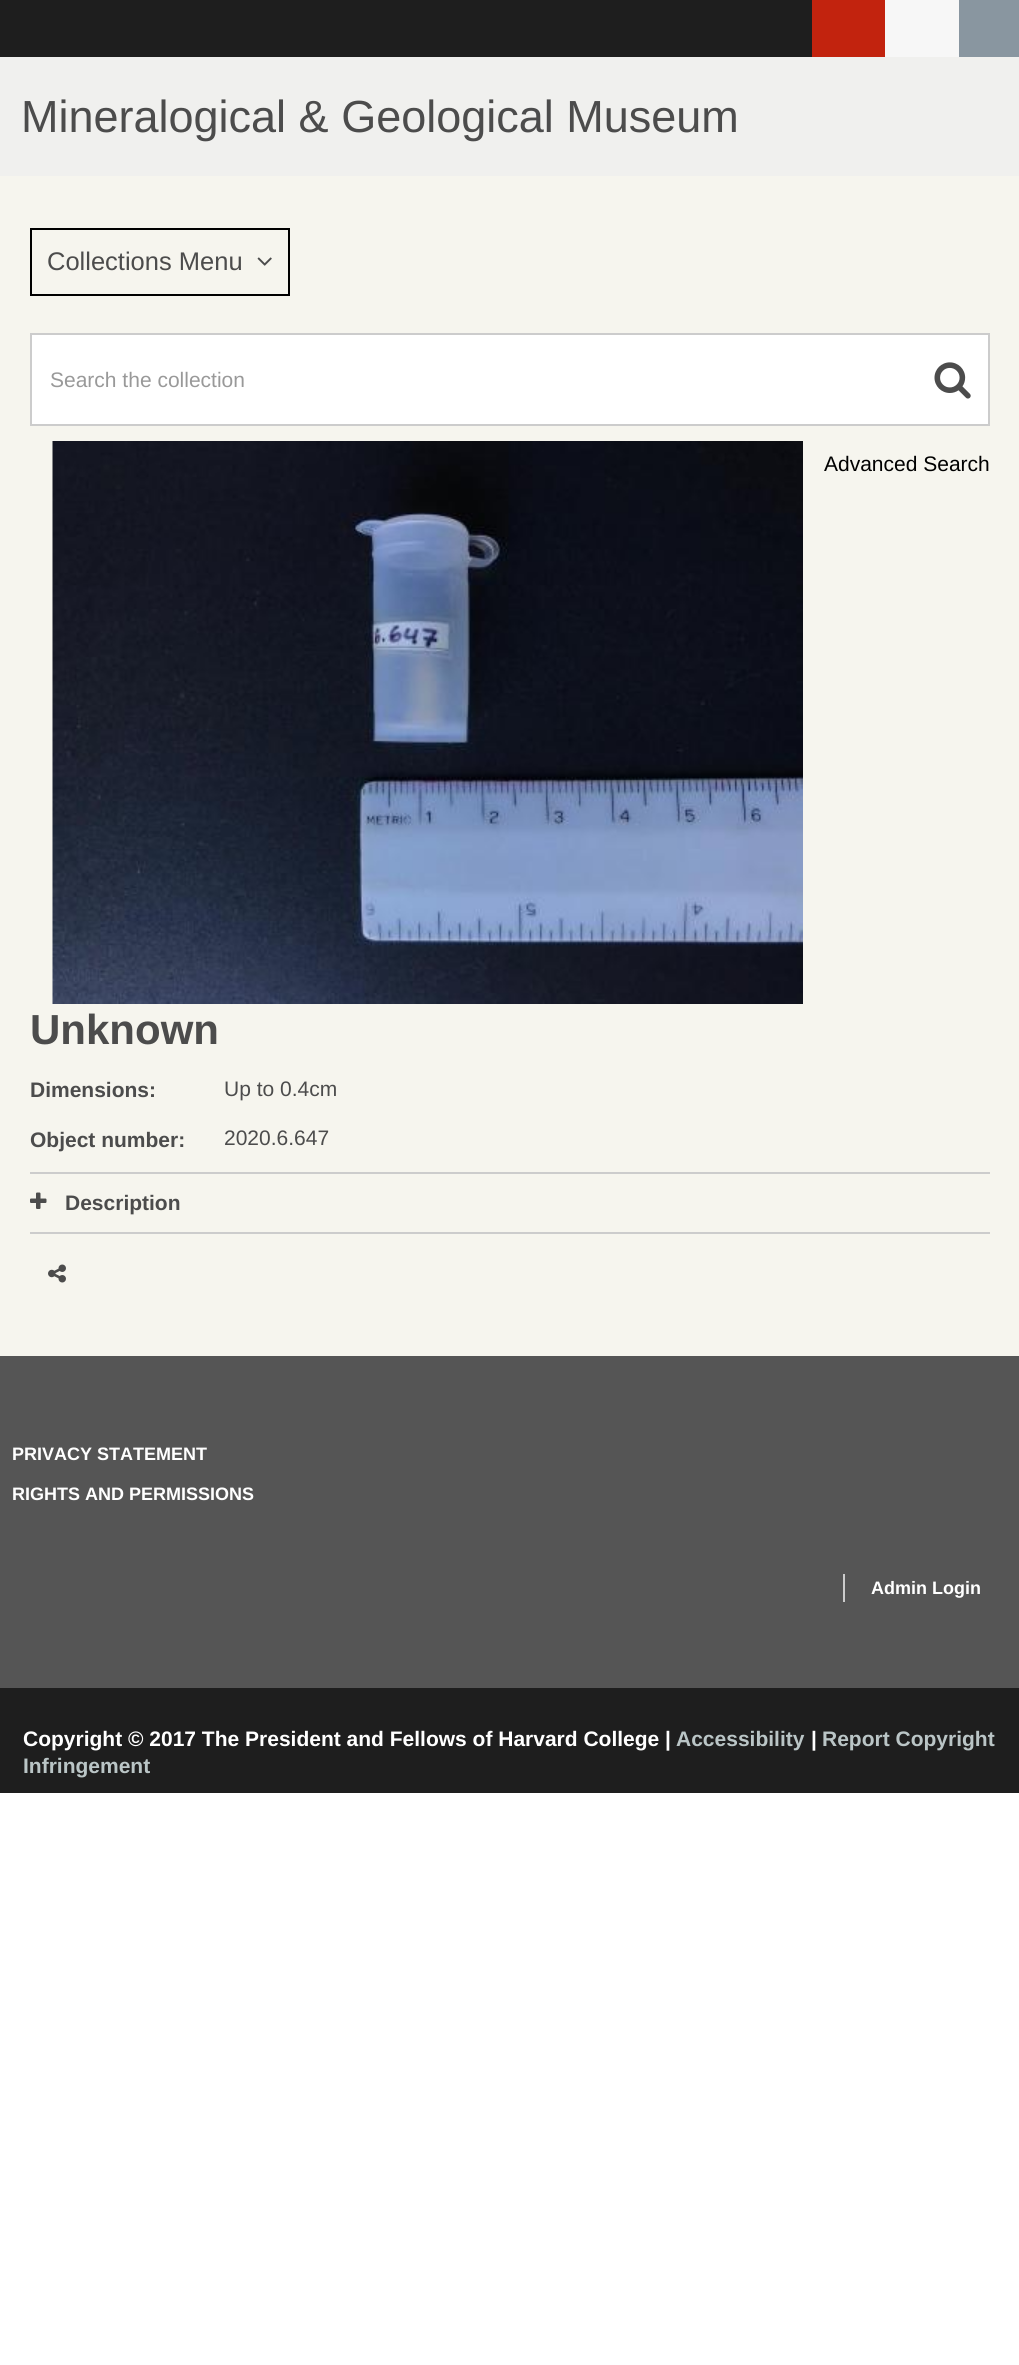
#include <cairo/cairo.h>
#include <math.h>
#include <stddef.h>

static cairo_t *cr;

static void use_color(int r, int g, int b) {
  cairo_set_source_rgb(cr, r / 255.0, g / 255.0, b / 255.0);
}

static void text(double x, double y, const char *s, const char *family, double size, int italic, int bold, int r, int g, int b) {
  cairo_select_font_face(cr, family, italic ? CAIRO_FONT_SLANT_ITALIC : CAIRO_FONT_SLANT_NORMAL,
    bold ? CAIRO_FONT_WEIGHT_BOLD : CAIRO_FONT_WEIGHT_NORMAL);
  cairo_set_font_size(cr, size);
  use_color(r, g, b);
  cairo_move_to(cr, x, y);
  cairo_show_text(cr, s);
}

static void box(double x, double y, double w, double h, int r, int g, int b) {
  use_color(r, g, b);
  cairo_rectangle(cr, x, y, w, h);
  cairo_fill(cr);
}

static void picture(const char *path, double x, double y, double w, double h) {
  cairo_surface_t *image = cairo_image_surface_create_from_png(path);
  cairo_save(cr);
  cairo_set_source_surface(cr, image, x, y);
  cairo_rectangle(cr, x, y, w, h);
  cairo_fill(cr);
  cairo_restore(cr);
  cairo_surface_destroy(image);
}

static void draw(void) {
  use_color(255, 255, 255);
  cairo_paint(cr);
  box(0, 0, 812, 57, 30, 30, 30);
  box(812, 0, 73, 57, 194, 35, 14);
  box(885, 0, 74, 57, 247, 247, 247);
  box(959, 0, 60, 57, 137, 150, 160);
  box(0, 176, 1019, 1180, 246, 245, 238);
  box(0, 57, 1019, 119, 240, 240, 238);
  cairo_rectangle(cr, 31, 229, 258, 66);
  use_color(0, 0, 0);
  cairo_stroke(cr);
  picture("img_01.png", 257, 257, 15, 9);
  use_color(255, 255, 255);
  cairo_rectangle(cr, 31, 334, 958, 91);
  cairo_fill_preserve(cr);
  use_color(204, 204, 204);
  cairo_stroke(cr);
  picture("img_02.png", 934, 362, 37, 37);
  picture("img_03.png", 52, 441, 751, 563);
  box(30, 1172, 960, 2, 204, 204, 204);
  box(30, 1232, 960, 2, 204, 204, 204);
  picture("img_04.png", 30, 1192, 17, 17);
  picture("img_05.png", 48, 1264, 18, 19);
  box(0, 1356, 1019, 332, 85, 85, 85);
  box(843, 1574, 2, 28, 204, 204, 204);
  box(0, 1688, 1019, 105, 30, 30, 30);
  text(21, 132, "Mineralogical & Geological Museum", "Liberation Sans", 45, 0, 0, 76, 76, 76);
  text(47, 270, "Collections Menu", "Liberation Sans", 25.5, 0, 0, 76, 76, 76);
  text(50, 387, "Search the collection", "Liberation Sans", 21, 0, 0, 153, 153, 153);
  text(824, 471, "Advanced Search", "Liberation Sans", 21, 0, 0, 0, 0, 0);
  text(30, 1044, "Unknown", "Liberation Sans", 42, 0, 1, 76, 76, 76);
  text(30, 1097, "Dimensions:", "Liberation Sans", 21, 0, 1, 76, 76, 76);
  text(224, 1096, "Up to 0.4cm", "Liberation Sans", 21, 0, 0, 76, 76, 76);
  text(30, 1147, "Object number:", "Liberation Sans", 21, 0, 1, 76, 76, 76);
  text(224, 1145, "2020.6.647", "Liberation Sans", 21, 0, 0, 76, 76, 76);
  text(65, 1210, "Description", "Liberation Sans", 21, 0, 1, 76, 76, 76);
  text(12, 1460, "PRIVACY STATEMENT", "Liberation Sans", 18, 0, 1, 255, 255, 255);
  text(12, 1500, "RIGHTS AND PERMISSIONS", "Liberation Sans", 18, 0, 1, 255, 255, 255);
  text(871, 1594, "Admin Login", "Liberation Sans", 18, 0, 1, 255, 255, 255);
  text(23, 1746, "Copyright © 2017 The President and Fellows of Harvard College |", "Liberation Sans", 21, 0, 1, 255, 255, 255);
  text(676, 1746, "Accessibility", "Liberation Sans", 21, 0, 1, 186, 197, 198);
  text(811, 1746, "|", "Liberation Sans", 21, 0, 1, 255, 255, 255);
  text(822, 1746, "Report Copyright", "Liberation Sans", 21, 0, 1, 186, 197, 198);
  text(23, 1773, "Infringement", "Liberation Sans", 21, 0, 1, 186, 197, 198);
}

int main(void) {
  cairo_surface_t *surface = cairo_image_surface_create(CAIRO_FORMAT_RGB24, 1019, 2365);
  cr = cairo_create(surface);
  cairo_font_options_t *options = cairo_font_options_create();
  cairo_font_options_set_hint_metrics(options, CAIRO_HINT_METRICS_OFF);
  cairo_font_options_set_hint_style(options, CAIRO_HINT_STYLE_NONE);
  cairo_set_font_options(cr, options);
  cairo_set_miter_limit(cr, 4);
  draw();
  cairo_surface_write_to_png(surface, "out.png");
  cairo_font_options_destroy(options);
  cairo_destroy(cr);
  cairo_surface_destroy(surface);
  return 0;
}
